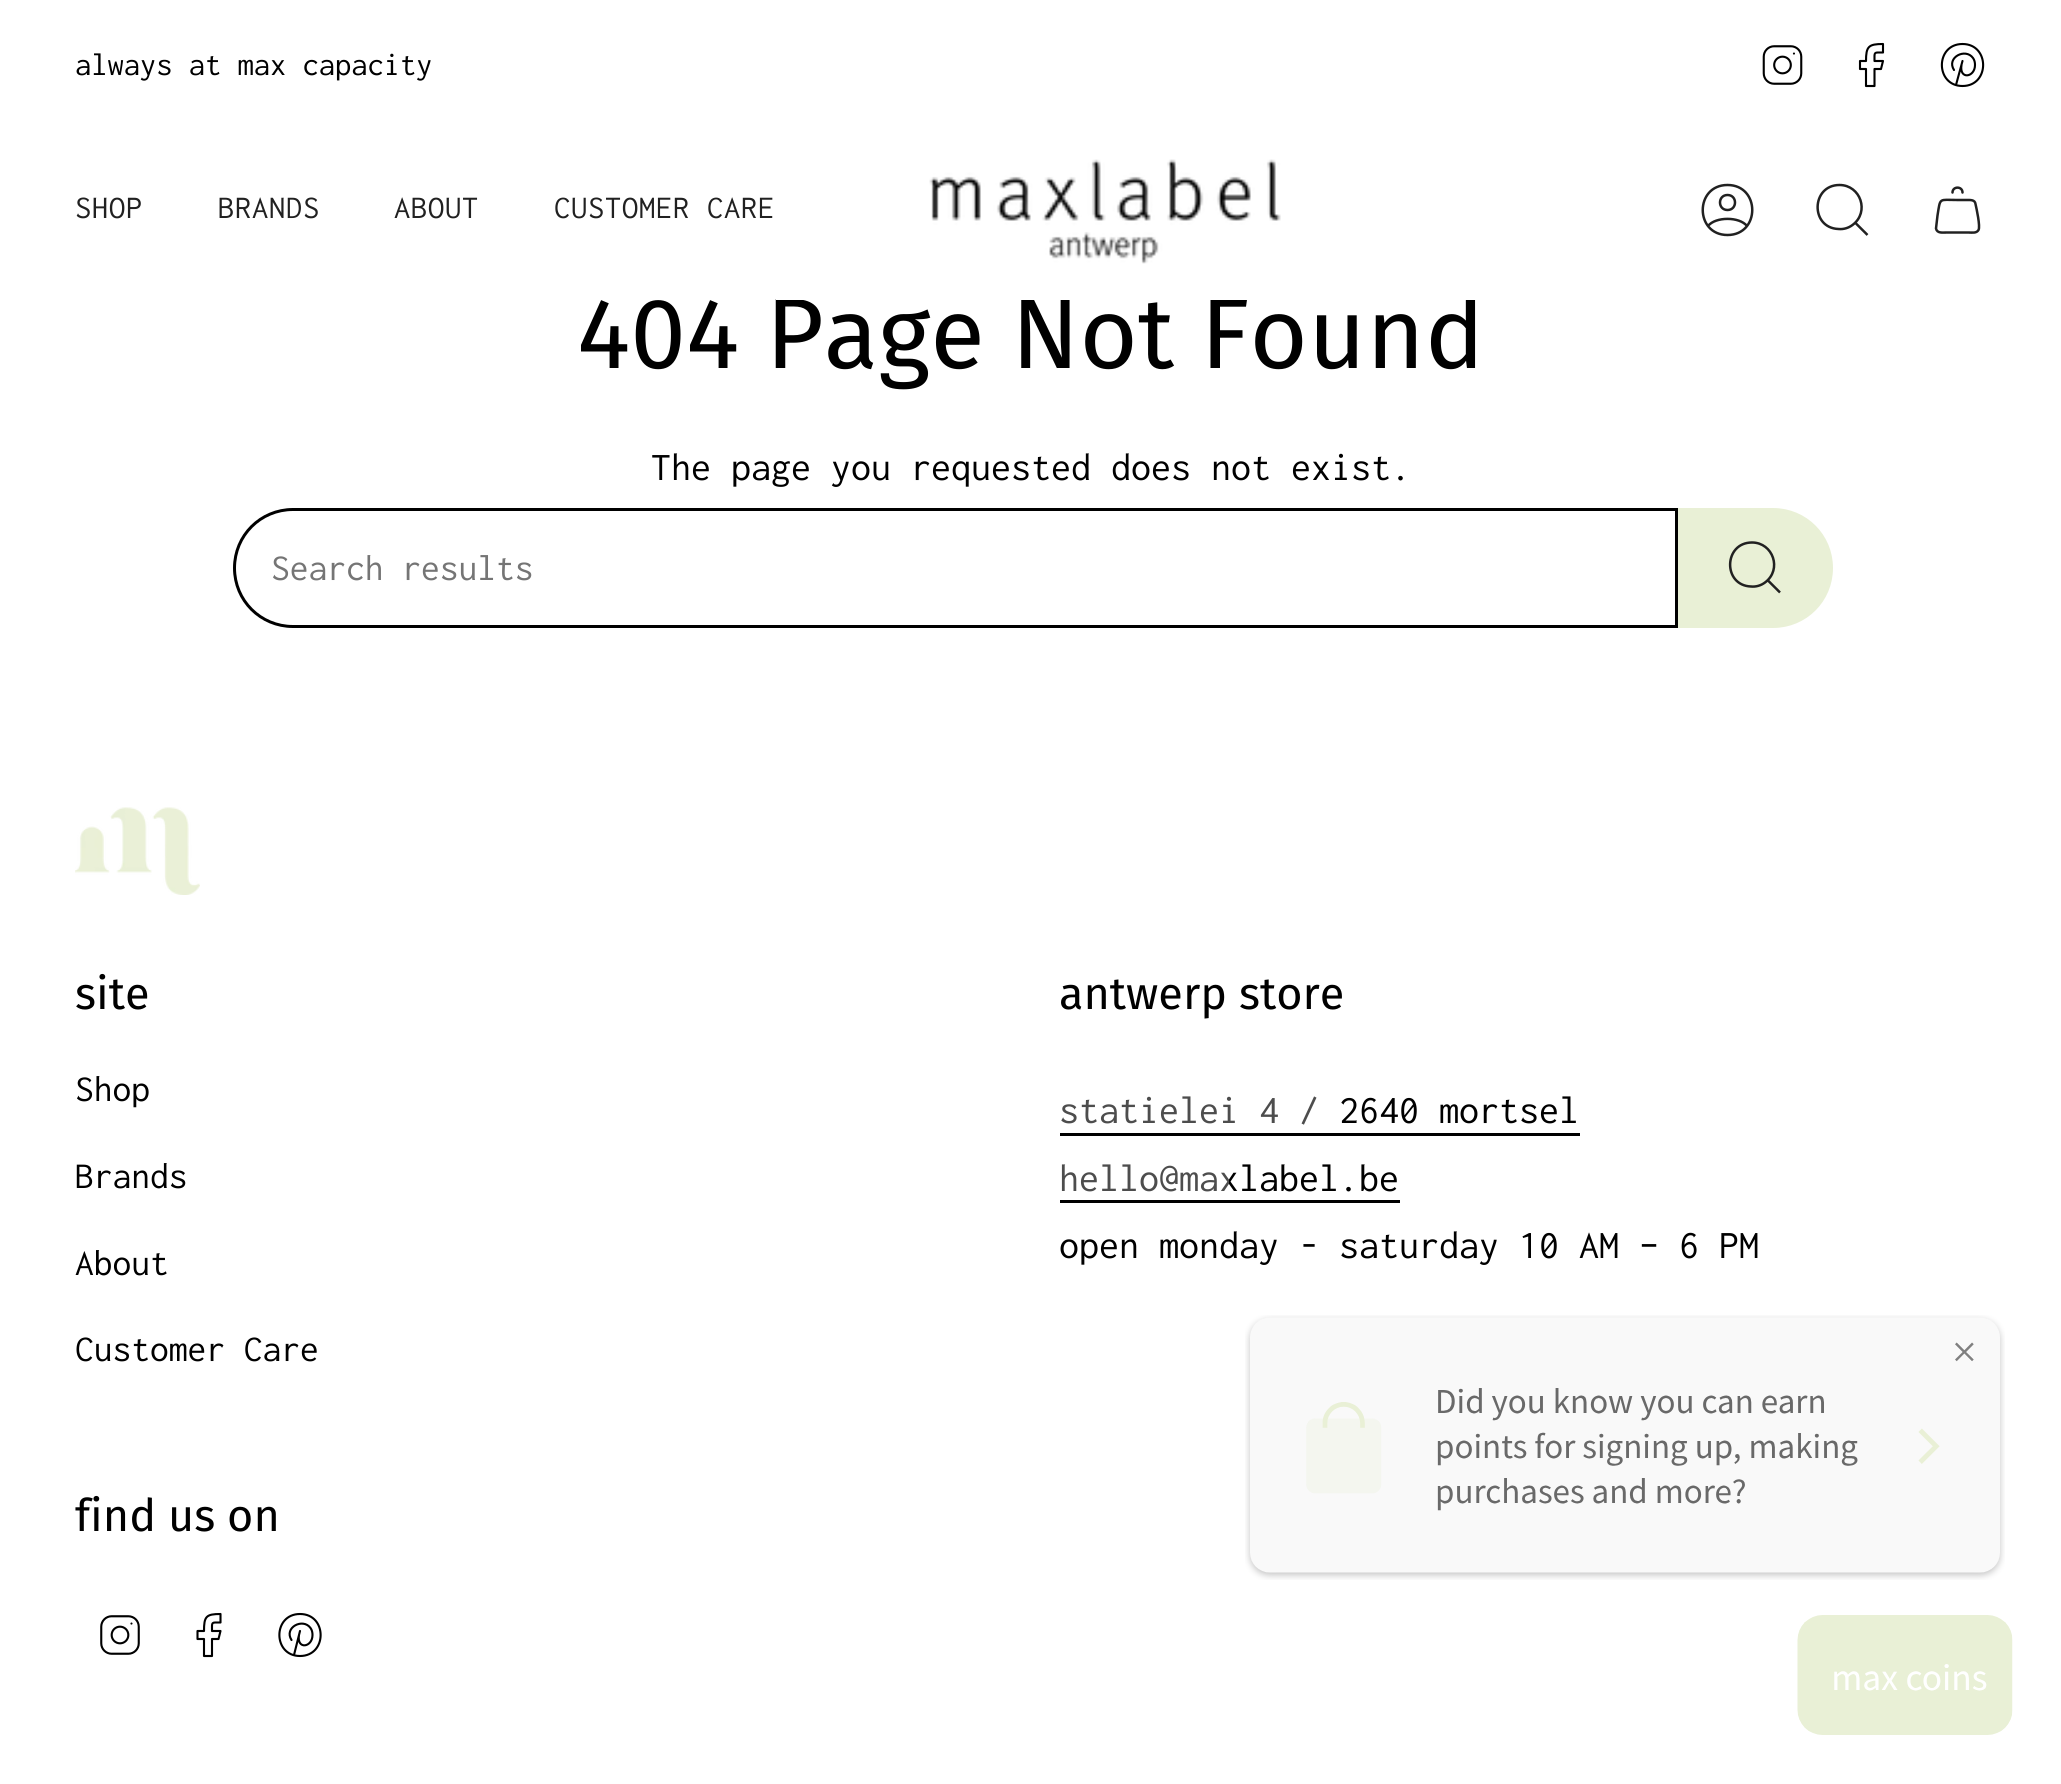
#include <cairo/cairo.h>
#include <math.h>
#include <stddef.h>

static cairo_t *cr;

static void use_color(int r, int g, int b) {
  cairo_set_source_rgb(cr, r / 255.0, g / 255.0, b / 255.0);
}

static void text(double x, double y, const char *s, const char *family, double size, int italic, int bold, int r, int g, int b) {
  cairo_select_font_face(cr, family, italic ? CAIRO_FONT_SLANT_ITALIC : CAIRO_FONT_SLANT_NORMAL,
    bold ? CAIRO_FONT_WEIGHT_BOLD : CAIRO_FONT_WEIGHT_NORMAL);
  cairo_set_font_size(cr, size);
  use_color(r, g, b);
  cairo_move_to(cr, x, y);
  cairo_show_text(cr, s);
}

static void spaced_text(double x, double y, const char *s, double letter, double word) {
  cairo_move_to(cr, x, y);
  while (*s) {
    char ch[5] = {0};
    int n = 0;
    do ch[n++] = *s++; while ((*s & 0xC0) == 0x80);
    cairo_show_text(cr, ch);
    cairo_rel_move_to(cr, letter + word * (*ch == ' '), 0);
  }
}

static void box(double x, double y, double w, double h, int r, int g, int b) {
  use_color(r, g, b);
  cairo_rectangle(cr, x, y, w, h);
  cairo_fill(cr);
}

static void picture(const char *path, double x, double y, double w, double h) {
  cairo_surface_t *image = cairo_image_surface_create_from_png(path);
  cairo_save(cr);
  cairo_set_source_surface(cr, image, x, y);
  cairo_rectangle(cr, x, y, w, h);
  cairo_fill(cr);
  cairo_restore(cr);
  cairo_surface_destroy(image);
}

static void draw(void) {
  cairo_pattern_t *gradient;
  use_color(255, 255, 255);
  cairo_paint(cr);
  picture("img_01.png", 1762, 45, 41, 40);
  cairo_new_path(cr);
  cairo_move_to(cr, 1883, 44);
  cairo_curve_to(cr, 1868.5, 44, 1866, 46.5, 1866, 61);
  cairo_line_to(cr, 1860, 61);
  cairo_line_to(cr, 1860, 69);
  cairo_line_to(cr, 1866, 69);
  cairo_line_to(cr, 1866, 86);
  cairo_line_to(cr, 1874.5, 86);
  cairo_line_to(cr, 1874.5, 69);
  cairo_line_to(cr, 1881, 69);
  cairo_line_to(cr, 1883, 61);
  cairo_line_to(cr, 1874.5, 61);
  cairo_curve_to(cr, 1874.5, 51.5, 1873.5, 52.5, 1883, 52.5);
  cairo_close_path(cr);
  use_color(0, 0, 0);
  cairo_set_line_width(cr, 2.1);
  cairo_set_line_cap(cr, CAIRO_LINE_CAP_ROUND);
  cairo_set_line_join(cr, CAIRO_LINE_JOIN_ROUND);
  cairo_stroke(cr);
  cairo_new_path(cr);
  cairo_move_to(cr, 1954, 70);
  cairo_curve_to(cr, 1946, 57.5, 1965.5, 47.5, 1973, 58);
  cairo_curve_to(cr, 1974.5, 60, 1975, 62.5, 1975, 65);
  cairo_curve_to(cr, 1975, 77.5, 1959, 80, 1961.5, 65);
  cairo_move_to(cr, 1962.5, 61);
  cairo_line_to(cr, 1956, 85);
  cairo_move_to(cr, 1962.5, 86);
  cairo_curve_to(cr, 1990, 86, 1990, 44, 1962.5, 44);
  cairo_curve_to(cr, 1935, 44, 1935, 86, 1962.5, 86);
  cairo_close_path(cr);
  cairo_stroke(cr);
  picture("img_02.png", 929, 159, 352, 105);
  cairo_new_path(cr);
  cairo_move_to(cr, 1727.5, 185);
  cairo_curve_to(cr, 1694.5, 185, 1694.5, 235, 1727.5, 235);
  cairo_curve_to(cr, 1760.5, 235, 1760.5, 185, 1727.5, 185);
  cairo_close_path(cr);
  cairo_move_to(cr, 1708, 226);
  cairo_curve_to(cr, 1715.5, 216.5, 1739.5, 216.5, 1747, 226);
  cairo_move_to(cr, 1727.5, 210);
  cairo_curve_to(cr, 1737.5, 210, 1737.5, 195, 1727.5, 195);
  cairo_curve_to(cr, 1717.5, 195, 1717.5, 210, 1727.5, 210);
  cairo_close_path(cr);
  use_color(33, 33, 33);
  cairo_set_line_width(cr, 2.5);
  cairo_stroke(cr);
  cairo_new_path(cr);
  cairo_move_to(cr, 1839.5, 185);
  cairo_curve_to(cr, 1860.5, 185, 1870, 212, 1852.5, 225);
  cairo_curve_to(cr, 1848.5, 228, 1843.5, 229.5, 1838.5, 229);
  cairo_curve_to(cr, 1810, 228, 1811, 185, 1839.5, 185);
  cairo_close_path(cr);
  cairo_move_to(cr, 1855.5, 223);
  cairo_line_to(cr, 1867.5, 235);
  cairo_set_line_cap(cr, CAIRO_LINE_CAP_BUTT);
  cairo_set_line_join(cr, CAIRO_LINE_JOIN_MITER);
  cairo_stroke(cr);
  cairo_new_path(cr);
  cairo_move_to(cr, 1975.5, 204);
  cairo_curve_to(cr, 1976.5, 208.5, 1980.5, 226.5, 1978.5, 230);
  cairo_curve_to(cr, 1976.5, 233.5, 1972, 232.5, 1968.5, 232.5);
  cairo_line_to(cr, 1946.5, 232.5);
  cairo_curve_to(cr, 1942.5, 232.5, 1937, 233.5, 1936, 228.5);
  cairo_line_to(cr, 1937.5, 215.5);
  cairo_curve_to(cr, 1940.5, 197, 1938.5, 200, 1957.5, 200);
  cairo_line_to(cr, 1966.5, 200);
  cairo_curve_to(cr, 1970, 200, 1975, 199.5, 1975.5, 204);
  cairo_close_path(cr);
  cairo_move_to(cr, 1962.5, 192.5);
  cairo_curve_to(cr, 1962.5, 186, 1952.5, 186, 1952.5, 192.5);
  cairo_set_line_cap(cr, CAIRO_LINE_CAP_ROUND);
  cairo_set_line_join(cr, CAIRO_LINE_JOIN_ROUND);
  cairo_stroke(cr);
  cairo_new_path(cr);
  cairo_move_to(cr, 293, 509.5);
  cairo_line_to(cr, 1676.5, 509.5);
  cairo_line_to(cr, 1676.5, 626.5);
  cairo_line_to(cr, 293, 626.5);
  cairo_curve_to(cr, 260.5, 626.5, 234.5, 600.5, 234.5, 568);
  cairo_curve_to(cr, 234.5, 535.5, 260.5, 509.5, 293, 509.5);
  cairo_close_path(cr);
  use_color(0, 0, 0);
  cairo_set_line_width(cr, 3);
  cairo_set_line_cap(cr, CAIRO_LINE_CAP_BUTT);
  cairo_set_line_join(cr, CAIRO_LINE_JOIN_MITER);
  cairo_stroke(cr);
  use_color(233, 240, 214);
  cairo_new_path(cr);
  cairo_move_to(cr, 1679.5, 509.5);
  cairo_line_to(cr, 1773, 509.5);
  cairo_curve_to(cr, 1805.5, 509.5, 1831.5, 535.5, 1831.5, 568);
  cairo_curve_to(cr, 1831.5, 600.5, 1805.5, 626.5, 1773, 626.5);
  cairo_line_to(cr, 1679.5, 626.5);
  cairo_close_path(cr);
  cairo_fill_preserve(cr);
  cairo_stroke(cr);
  cairo_new_path(cr);
  cairo_move_to(cr, 1752, 542.5);
  cairo_curve_to(cr, 1773, 542.5, 1782.5, 569.5, 1765, 582.5);
  cairo_curve_to(cr, 1761, 585.5, 1756, 587, 1751, 586.5);
  cairo_curve_to(cr, 1722.5, 585.5, 1723.5, 542.5, 1752, 542.5);
  cairo_close_path(cr);
  cairo_move_to(cr, 1768, 580.5);
  cairo_line_to(cr, 1780, 592.5);
  use_color(33, 33, 33);
  cairo_set_line_width(cr, 2.5);
  cairo_stroke(cr);
  picture("img_03.png", 75, 807, 125, 88);
  box(1060, 1133, 520, 3, 0, 0, 0);
  box(1060, 1200, 340, 3, 0, 0, 0);
  picture("img_04.png", 100, 1615, 40, 40);
  cairo_new_path(cr);
  cairo_move_to(cr, 220.5, 1614);
  cairo_curve_to(cr, 206, 1614, 204, 1616.5, 204, 1631);
  cairo_line_to(cr, 197.5, 1631);
  cairo_line_to(cr, 197.5, 1639);
  cairo_line_to(cr, 204, 1639);
  cairo_line_to(cr, 204, 1656);
  cairo_line_to(cr, 212, 1656);
  cairo_line_to(cr, 212, 1639);
  cairo_line_to(cr, 218.5, 1639);
  cairo_line_to(cr, 220.5, 1631);
  cairo_line_to(cr, 212, 1631);
  cairo_curve_to(cr, 212, 1621.5, 211, 1622.5, 220.5, 1622.5);
  cairo_close_path(cr);
  cairo_set_line_width(cr, 2.1);
  cairo_set_line_cap(cr, CAIRO_LINE_CAP_ROUND);
  cairo_set_line_join(cr, CAIRO_LINE_JOIN_ROUND);
  cairo_stroke(cr);
  cairo_new_path(cr);
  cairo_move_to(cr, 291.5, 1640);
  cairo_curve_to(cr, 283.5, 1627.5, 303, 1617.5, 310.5, 1628);
  cairo_curve_to(cr, 312, 1630, 312.5, 1632.5, 312.5, 1635);
  cairo_curve_to(cr, 312.5, 1647.5, 296.5, 1650, 299, 1635);
  cairo_move_to(cr, 300, 1631);
  cairo_line_to(cr, 294, 1655);
  cairo_move_to(cr, 300, 1656);
  cairo_curve_to(cr, 327.5, 1656, 327.5, 1614, 300, 1614);
  cairo_curve_to(cr, 272.5, 1614, 272.5, 1656, 300, 1656);
  cairo_close_path(cr);
  cairo_stroke(cr);
  picture("img_05.png", 1245, 1315, 760, 265);
  picture("img_06.png", 1797, 1615, 216, 120);
  text(75, 75, "always at max capacity", "Inconsolata", 32.5, 0, 0, 0, 0, 0);
  use_color(33, 33, 33);
  spaced_text(75, 218, "SHOP", 0.75, 0);
  spaced_text(218, 218, "BRANDS", 0.75, 0);
  spaced_text(394, 218, "ABOUT", 0.75, 0);
  spaced_text(554, 218, "CUSTOMER CARE", 0.75, 0);
  text(577, 368, "404 Page Not Found", "Fira Sans", 100, 0, 0, 0, 0, 0);
  box(776, 293, 700, 7, 255, 255, 255);
  text(651, 480, "The page you requested does not exist.", "Inconsolata", 40, 0, 0, 0, 0, 0);
  text(271, 580, "Search results", "Inconsolata", 37.5, 0, 0, 117, 117, 117);
  text(75, 1009, "site", "Fira Sans", 45, 0, 0, 0, 0, 0);
  text(75, 1101, "Shop", "Inconsolata", 37.5, 0, 0, 0, 0, 0);
  text(75, 1188, "Brands", "Inconsolata", 37.5, 0, 0, 0, 0, 0);
  text(75, 1275, "About", "Inconsolata", 37.5, 0, 0, 0, 0, 0);
  text(75, 1361, "Customer Care", "Inconsolata", 37.5, 0, 0, 0, 0, 0);
  text(1059, 1009, "antwerp store", "Fira Sans", 45, 0, 0, 0, 0, 0);
  cairo_select_font_face(cr, "Inconsolata", CAIRO_FONT_SLANT_NORMAL, CAIRO_FONT_WEIGHT_NORMAL);
  cairo_set_font_size(cr, 40);
  gradient = cairo_pattern_create_linear(1059, 1112, 1579, 1112);
  cairo_pattern_add_color_stop_rgba(gradient, 0, 0.302, 0.302, 0.302, 1);
  cairo_pattern_add_color_stop_rgba(gradient, 0.5, 0.302, 0.302, 0.302, 1);
  cairo_pattern_add_color_stop_rgba(gradient, 0.5, 0, 0, 0, 1);
  cairo_pattern_add_color_stop_rgba(gradient, 1, 0, 0, 0, 1);
  cairo_set_source(cr, gradient);
  cairo_pattern_destroy(gradient);
  cairo_move_to(cr, 1059, 1123);
  cairo_show_text(cr, "statielei 4 / 2640 mortsel");
  gradient = cairo_pattern_create_linear(1059, 1180, 1399, 1180);
  cairo_pattern_add_color_stop_rgba(gradient, 0, 0.302, 0.302, 0.302, 1);
  cairo_pattern_add_color_stop_rgba(gradient, 0.5, 0.302, 0.302, 0.302, 1);
  cairo_pattern_add_color_stop_rgba(gradient, 0.5, 0, 0, 0, 1);
  cairo_pattern_add_color_stop_rgba(gradient, 1, 0, 0, 0, 1);
  cairo_set_source(cr, gradient);
  cairo_pattern_destroy(gradient);
  cairo_move_to(cr, 1059, 1191);
  cairo_show_text(cr, "hello@maxlabel.be");
  text(1059, 1258, "open monday - saturday 10 AM – 6 PM", "Inconsolata", 40, 0, 0, 0, 0, 0);
  text(75, 1531, "find us on", "Fira Sans", 45, 0, 0, 0, 0, 0);
}

int main(void) {
  cairo_surface_t *surface = cairo_image_surface_create(CAIRO_FORMAT_RGB24, 2061, 1784);
  cr = cairo_create(surface);
  cairo_font_options_t *options = cairo_font_options_create();
  cairo_font_options_set_hint_metrics(options, CAIRO_HINT_METRICS_OFF);
  cairo_font_options_set_hint_style(options, CAIRO_HINT_STYLE_NONE);
  cairo_set_font_options(cr, options);
  cairo_set_miter_limit(cr, 4);
  draw();
  cairo_surface_write_to_png(surface, "out.png");
  cairo_font_options_destroy(options);
  cairo_destroy(cr);
  cairo_surface_destroy(surface);
  return 0;
}
